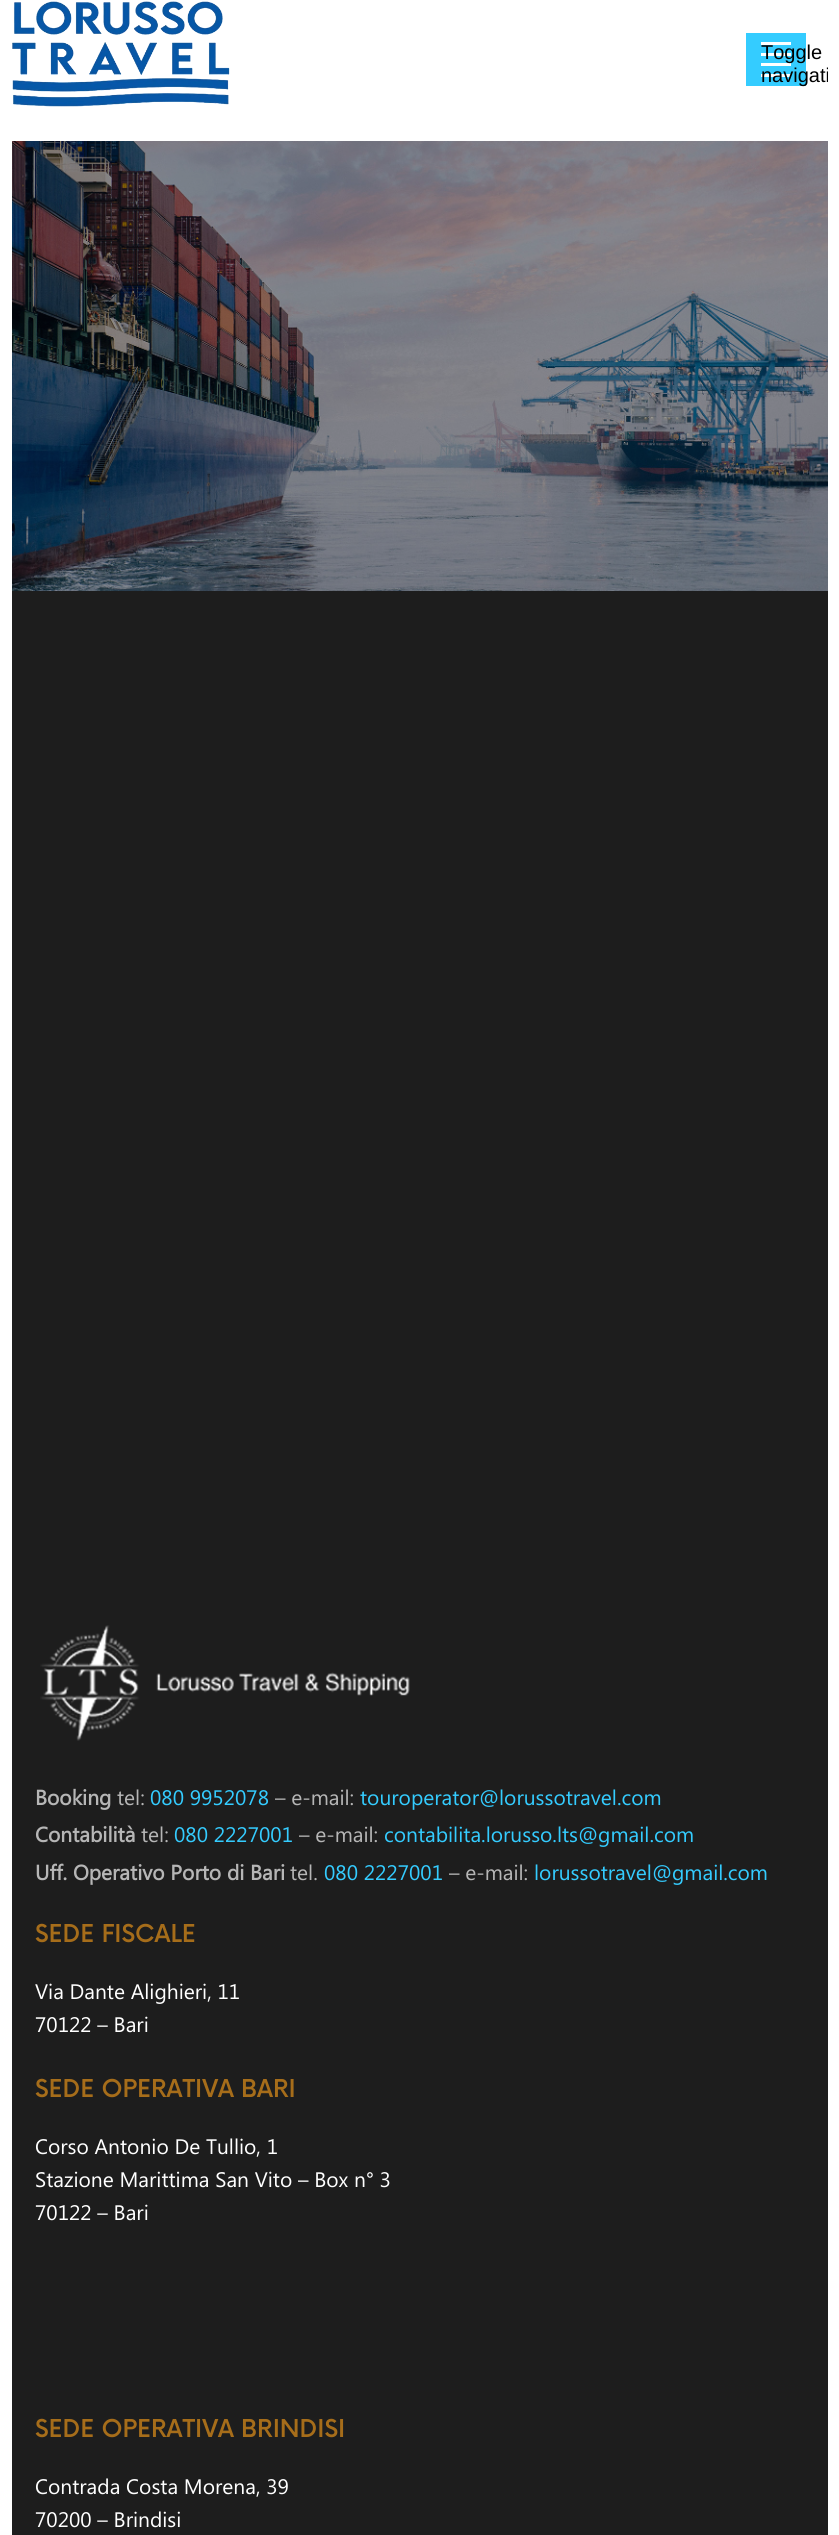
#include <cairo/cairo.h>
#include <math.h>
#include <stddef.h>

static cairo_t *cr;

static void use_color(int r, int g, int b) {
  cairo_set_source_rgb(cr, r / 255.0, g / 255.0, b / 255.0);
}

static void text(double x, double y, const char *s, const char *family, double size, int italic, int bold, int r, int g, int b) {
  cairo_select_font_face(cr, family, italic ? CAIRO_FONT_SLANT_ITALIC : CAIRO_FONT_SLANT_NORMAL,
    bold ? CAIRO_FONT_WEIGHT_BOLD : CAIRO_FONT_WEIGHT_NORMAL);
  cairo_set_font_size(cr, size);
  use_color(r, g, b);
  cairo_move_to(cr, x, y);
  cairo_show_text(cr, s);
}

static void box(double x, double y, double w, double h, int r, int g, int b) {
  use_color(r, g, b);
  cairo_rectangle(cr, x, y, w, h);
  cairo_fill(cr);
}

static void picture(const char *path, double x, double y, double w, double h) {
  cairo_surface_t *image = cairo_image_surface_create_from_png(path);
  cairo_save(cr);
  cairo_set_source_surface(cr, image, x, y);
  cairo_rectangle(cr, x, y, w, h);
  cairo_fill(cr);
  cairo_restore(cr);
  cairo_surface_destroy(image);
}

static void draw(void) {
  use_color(255, 255, 255);
  cairo_paint(cr);
  picture("img_01.png", 12, 1, 218, 106);
  box(746, 33, 60, 53, 52, 204, 255);
  box(761, 42, 30, 3, 255, 255, 255);
  box(761, 53, 30, 3, 255, 255, 255);
  box(761, 63, 30, 3, 255, 255, 255);
  box(761, 74, 30, 3, 255, 255, 255);
  picture("img_02.png", 12, 141, 816, 450);
  box(12, 591, 816, 1944, 29, 29, 29);
  picture("img_03.png", 40, 1625, 370, 116);
  text(761, 59, "Toggle", "Liberation Sans", 20, 0, 0, 0, 0, 0);
  cairo_save(cr);
  cairo_rectangle(cr, 12, 0, 816, 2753);
  cairo_clip(cr);
  text(761, 82, "navigati", "Liberation Sans", 20, 0, 0, 0, 0, 0);
  cairo_restore(cr);
  text(35, 1805, "Booking", "Segoe UI", 21, 0, 1, 182, 182, 182);
  text(117, 1805, "tel:", "Segoe UI", 21, 0, 0, 182, 182, 182);
  text(150, 1805, "080 9952078", "Segoe UI", 21, 0, 0, 52, 204, 255);
  text(275, 1805, "– e-mail:", "Segoe UI", 21, 0, 0, 182, 182, 182);
  text(360, 1805, "touroperator@lorussotravel.com", "Segoe UI", 21, 0, 0, 52, 204, 255);
  text(35, 1842, "Contabilità", "Segoe UI", 21, 0, 1, 182, 182, 182);
  text(141, 1842, "tel:", "Segoe UI", 21, 0, 0, 182, 182, 182);
  text(174, 1842, "080 2227001", "Segoe UI", 21, 0, 0, 52, 204, 255);
  text(299, 1842, "– e-mail:", "Segoe UI", 21, 0, 0, 182, 182, 182);
  text(384, 1842, "contabilita.lorusso.lts@gmail.com", "Segoe UI", 21, 0, 0, 52, 204, 255);
  text(35, 1880, "Uff. Operativo Porto di Bari", "Segoe UI", 21, 0, 1, 182, 182, 182);
  text(290, 1880, "tel.", "Segoe UI", 21, 0, 0, 182, 182, 182);
  text(324, 1880, "080 2227001", "Segoe UI", 21, 0, 0, 52, 204, 255);
  text(449, 1880, "– e-mail:", "Segoe UI", 21, 0, 0, 182, 182, 182);
  text(534, 1880, "lorussotravel@gmail.com", "Segoe UI", 21, 0, 0, 52, 204, 255);
  text(35, 1942, "SEDE FISCALE", "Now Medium", 24, 0, 0, 166, 109, 26);
  text(35, 1999, "Via Dante Alighieri, 11", "Segoe UI", 21, 0, 0, 255, 255, 255);
  text(35, 2032, "70122 – Bari", "Segoe UI", 21, 0, 0, 255, 255, 255);
  text(35, 2097, "SEDE OPERATIVA BARI", "Now Medium", 24, 0, 0, 166, 109, 26);
  text(35, 2154, "Corso Antonio De Tullio, 1", "Segoe UI", 21, 0, 0, 255, 255, 255);
  text(35, 2187, "Stazione Marittima San Vito – Box n° 3", "Segoe UI", 21, 0, 0, 255, 255, 255);
  text(35, 2220, "70122 – Bari", "Segoe UI", 21, 0, 0, 255, 255, 255);
  text(35, 2437, "SEDE OPERATIVA BRINDISI", "Now Medium", 24, 0, 0, 166, 109, 26);
  text(35, 2494, "Contrada Costa Morena, 39", "Segoe UI", 21, 0, 0, 255, 255, 255);
  text(35, 2527, "70200 – Brindisi", "Segoe UI", 21, 0, 0, 255, 255, 255);
}

int main(void) {
  cairo_surface_t *surface = cairo_image_surface_create(CAIRO_FORMAT_RGB24, 839, 2535);
  cr = cairo_create(surface);
  cairo_font_options_t *options = cairo_font_options_create();
  cairo_font_options_set_hint_metrics(options, CAIRO_HINT_METRICS_OFF);
  cairo_font_options_set_hint_style(options, CAIRO_HINT_STYLE_NONE);
  cairo_set_font_options(cr, options);
  cairo_set_miter_limit(cr, 4);
  draw();
  cairo_surface_write_to_png(surface, "out.png");
  cairo_font_options_destroy(options);
  cairo_destroy(cr);
  cairo_surface_destroy(surface);
  return 0;
}
